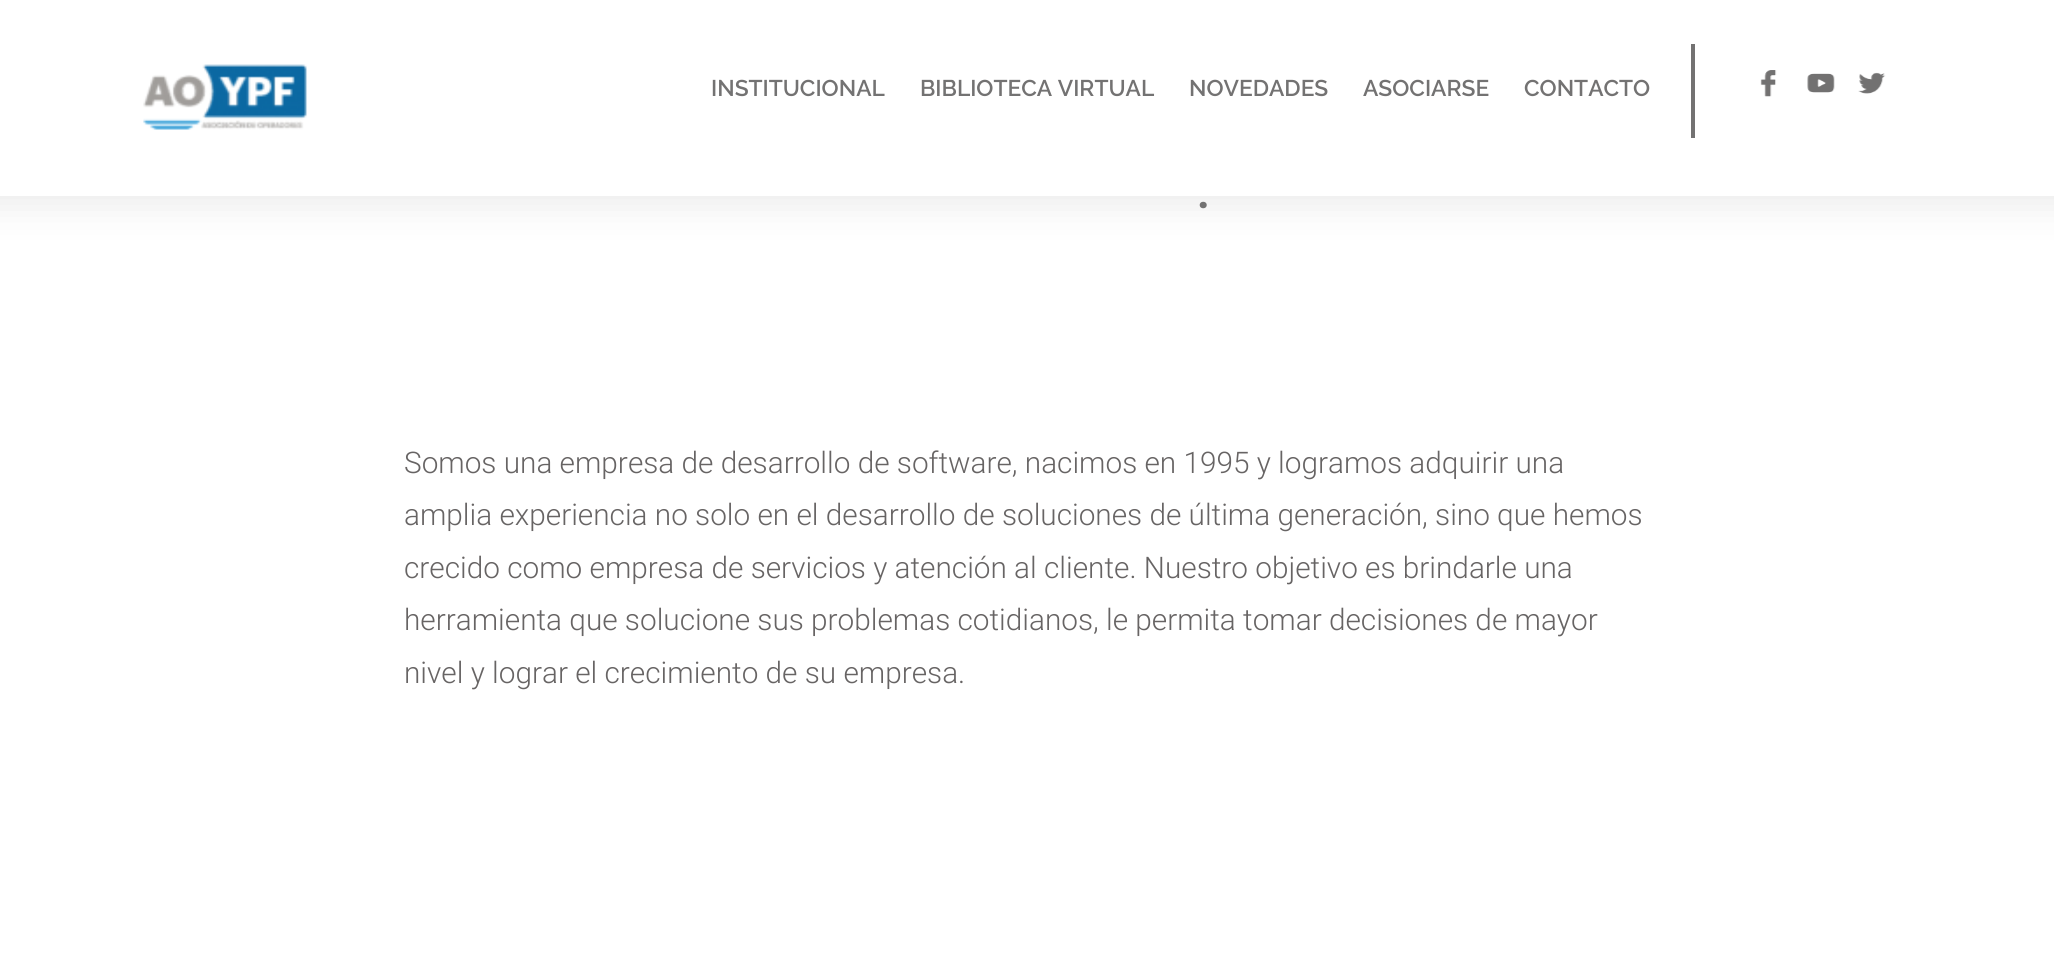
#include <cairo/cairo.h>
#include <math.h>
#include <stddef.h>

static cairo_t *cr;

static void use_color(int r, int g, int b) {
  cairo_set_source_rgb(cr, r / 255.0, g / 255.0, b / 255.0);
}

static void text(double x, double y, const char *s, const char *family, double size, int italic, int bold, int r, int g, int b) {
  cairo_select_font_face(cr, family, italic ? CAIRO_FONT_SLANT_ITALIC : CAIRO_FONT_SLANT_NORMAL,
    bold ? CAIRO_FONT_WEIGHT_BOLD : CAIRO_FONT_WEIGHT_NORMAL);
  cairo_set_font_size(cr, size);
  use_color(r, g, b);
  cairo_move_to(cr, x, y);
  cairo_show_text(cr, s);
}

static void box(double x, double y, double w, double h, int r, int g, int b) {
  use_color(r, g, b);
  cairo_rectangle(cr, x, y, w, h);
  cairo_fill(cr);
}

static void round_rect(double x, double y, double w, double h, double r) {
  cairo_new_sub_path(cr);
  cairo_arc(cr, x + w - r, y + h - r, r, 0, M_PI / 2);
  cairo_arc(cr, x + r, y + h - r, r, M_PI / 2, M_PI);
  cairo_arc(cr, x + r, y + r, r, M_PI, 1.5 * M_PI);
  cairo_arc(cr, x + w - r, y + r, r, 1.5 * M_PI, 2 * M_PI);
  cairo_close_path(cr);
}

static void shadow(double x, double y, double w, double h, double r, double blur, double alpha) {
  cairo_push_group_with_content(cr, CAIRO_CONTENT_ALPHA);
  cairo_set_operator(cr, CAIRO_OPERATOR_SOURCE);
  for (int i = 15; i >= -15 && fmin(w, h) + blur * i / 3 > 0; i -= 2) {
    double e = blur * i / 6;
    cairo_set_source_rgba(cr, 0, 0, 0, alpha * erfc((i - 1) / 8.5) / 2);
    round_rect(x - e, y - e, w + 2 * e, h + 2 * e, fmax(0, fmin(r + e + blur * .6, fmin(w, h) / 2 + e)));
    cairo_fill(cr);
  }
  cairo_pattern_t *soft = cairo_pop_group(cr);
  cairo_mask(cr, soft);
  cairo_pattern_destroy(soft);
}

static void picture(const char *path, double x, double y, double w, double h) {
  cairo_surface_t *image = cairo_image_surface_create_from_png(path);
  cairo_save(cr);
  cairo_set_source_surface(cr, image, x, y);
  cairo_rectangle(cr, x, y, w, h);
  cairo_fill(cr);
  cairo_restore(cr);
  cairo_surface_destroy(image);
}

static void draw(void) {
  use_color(255, 255, 255);
  cairo_paint(cr);
  use_color(50, 50, 50);
  shadow(-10, -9, 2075, 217, 0, 17.5, 0.09);
  box(0, 0, 2054, 196, 255, 255, 255);
  picture("img_01.png", 143, 64, 164, 66);
  box(1691, 44, 4, 94, 115, 114, 114);
  picture("img_02.png", 1760, 70, 17, 27);
  picture("img_03.png", 1807, 73, 28, 20);
  picture("img_04.png", 1858, 72, 28, 22);
  text(711, 96, "INSTITUCIONAL", "Raleway SemiBold", 22.75, 0, 0, 115, 114, 114);
  text(920, 96, "BIBLIOTECA VIRTUAL", "Raleway SemiBold", 22.75, 0, 0, 115, 114, 114);
  text(1189, 96, "NOVEDADES", "Raleway SemiBold", 22.75, 0, 0, 115, 114, 114);
  text(1363, 96, "ASOCIARSE", "Raleway SemiBold", 22.75, 0, 0, 115, 114, 114);
  text(1524, 96, "CONTACTO", "Raleway SemiBold", 22.75, 0, 0, 115, 114, 114);
  text(1197, 208, ".", "Roboto", 44, 0, 1, 115, 114, 114);
  text(404, 473, "Somos una empresa de desarrollo de software, nacimos en 1995 y logramos adquirir una", "Roboto Light", 29.75, 0, 0, 103, 100, 100);
  text(404, 525, "amplia experiencia no solo en el desarrollo de soluciones de última generación, sino que hemos", "Roboto Light", 29.75, 0, 0, 103, 100, 100);
  text(404, 578, "crecido como empresa de servicios y atención al cliente. Nuestro objetivo es brindarle una", "Roboto Light", 29.75, 0, 0, 103, 100, 100);
  text(404, 630, "herramienta que solucione sus problemas cotidianos, le permita tomar decisiones de mayor", "Roboto Light", 29.75, 0, 0, 103, 100, 100);
  text(404, 683, "nivel y lograr el crecimiento de su empresa.", "Roboto Light", 29.75, 0, 0, 103, 100, 100);
}

int main(void) {
  cairo_surface_t *surface = cairo_image_surface_create(CAIRO_FORMAT_RGB24, 2054, 955);
  cr = cairo_create(surface);
  cairo_font_options_t *options = cairo_font_options_create();
  cairo_font_options_set_hint_metrics(options, CAIRO_HINT_METRICS_OFF);
  cairo_font_options_set_hint_style(options, CAIRO_HINT_STYLE_NONE);
  cairo_set_font_options(cr, options);
  cairo_set_miter_limit(cr, 4);
  draw();
  cairo_surface_write_to_png(surface, "out.png");
  cairo_font_options_destroy(options);
  cairo_destroy(cr);
  cairo_surface_destroy(surface);
  return 0;
}
